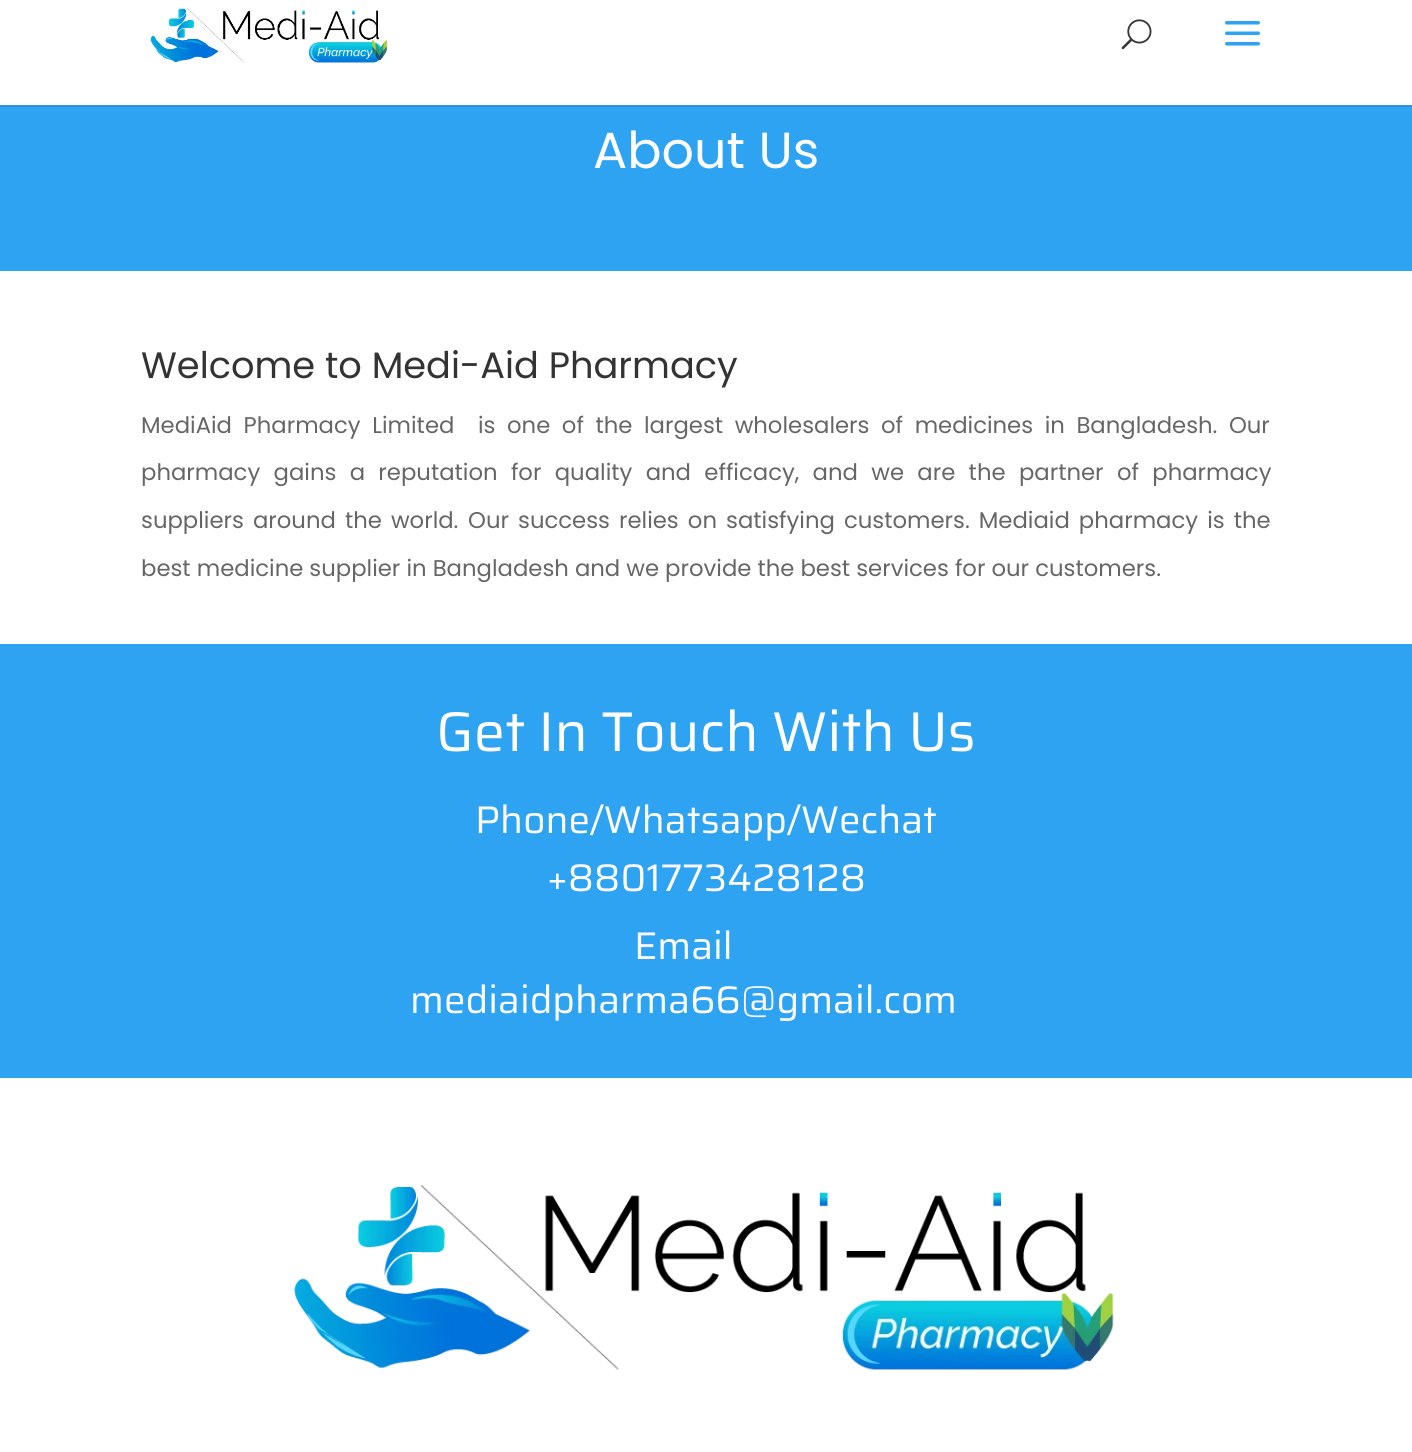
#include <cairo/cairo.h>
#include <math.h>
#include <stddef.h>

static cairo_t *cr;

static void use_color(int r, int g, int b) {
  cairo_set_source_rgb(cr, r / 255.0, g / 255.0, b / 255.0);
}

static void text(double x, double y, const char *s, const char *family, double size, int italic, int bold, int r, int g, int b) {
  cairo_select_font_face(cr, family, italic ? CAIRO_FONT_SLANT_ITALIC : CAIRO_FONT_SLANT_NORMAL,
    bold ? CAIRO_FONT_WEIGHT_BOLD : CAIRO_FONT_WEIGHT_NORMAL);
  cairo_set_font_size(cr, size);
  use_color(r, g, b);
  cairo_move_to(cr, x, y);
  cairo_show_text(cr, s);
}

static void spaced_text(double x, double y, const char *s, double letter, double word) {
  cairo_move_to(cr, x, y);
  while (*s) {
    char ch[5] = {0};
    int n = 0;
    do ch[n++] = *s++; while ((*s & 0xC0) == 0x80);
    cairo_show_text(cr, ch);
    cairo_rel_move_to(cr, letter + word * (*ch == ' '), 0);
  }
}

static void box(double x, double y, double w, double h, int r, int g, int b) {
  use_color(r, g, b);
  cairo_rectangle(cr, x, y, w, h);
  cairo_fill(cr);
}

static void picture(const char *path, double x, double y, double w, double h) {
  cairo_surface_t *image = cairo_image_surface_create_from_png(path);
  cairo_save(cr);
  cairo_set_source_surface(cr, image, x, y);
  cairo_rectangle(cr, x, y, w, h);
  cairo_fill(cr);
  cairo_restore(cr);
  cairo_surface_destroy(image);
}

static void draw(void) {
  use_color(255, 255, 255);
  cairo_paint(cr);
  box(0, 105, 1412, 2, 41, 147, 218);
  picture("img_01.png", 150, 8, 237, 55);
  picture("img_02.png", 1121, 19, 31, 31);
  picture("img_03.png", 1225, 21, 35, 25);
  box(0, 107, 1412, 164, 46, 163, 242);
  box(0, 644, 1412, 434, 46, 163, 242);
  picture("img_04.png", 294, 1185, 820, 185);
  text(593, 168, "About Us", "Poppins", 50.75, 0, 0, 255, 255, 255);
  text(141, 378, "Welcome to Medi-Aid Pharmacy", "Poppins", 36.75, 0, 0, 51, 51, 51);
  cairo_set_font_size(cr, 22.75);
  use_color(102, 102, 102);
  spaced_text(141, 433, "MediAid Pharmacy Limited", 0, 5.5);
  spaced_text(478, 433, "is one of the largest wholesalers of medicines in Bangladesh. Our", 0, 5.5);
  spaced_text(141, 480, "pharmacy gains a reputation for quality and efficacy, and we are the partner of pharmacy", 0, 7.25);
  spaced_text(141, 528, "suppliers around the world.", 0, 3);
  spaced_text(468, 528, "Our success relies on satisfying customers. Mediaid pharmacy is the", 0, 3);
  text(141, 576, "best medicine supplier in Bangladesh and we provide the best services for our customers.", "Poppins", 22.75, 0, 0, 102, 102, 102);
  text(436, 751, "Get In Touch With Us", "Saira", 56, 0, 0, 255, 255, 255);
  text(475, 833, "Phone/Whatsapp/Wechat", "Saira", 38.5, 0, 0, 255, 255, 255);
  text(547, 891, "+8801773428128", "Saira", 38.5, 0, 0, 255, 255, 255);
  text(634, 959, "Email", "Saira", 38.5, 0, 0, 255, 255, 255);
  text(410, 1013, "mediaidpharma66@gmail.com", "Saira", 38.5, 0, 0, 255, 255, 255);
}

int main(void) {
  cairo_surface_t *surface = cairo_image_surface_create(CAIRO_FORMAT_RGB24, 1412, 1452);
  cr = cairo_create(surface);
  cairo_font_options_t *options = cairo_font_options_create();
  cairo_font_options_set_hint_metrics(options, CAIRO_HINT_METRICS_OFF);
  cairo_font_options_set_hint_style(options, CAIRO_HINT_STYLE_NONE);
  cairo_set_font_options(cr, options);
  cairo_set_miter_limit(cr, 4);
  draw();
  cairo_surface_write_to_png(surface, "out.png");
  cairo_font_options_destroy(options);
  cairo_destroy(cr);
  cairo_surface_destroy(surface);
  return 0;
}
